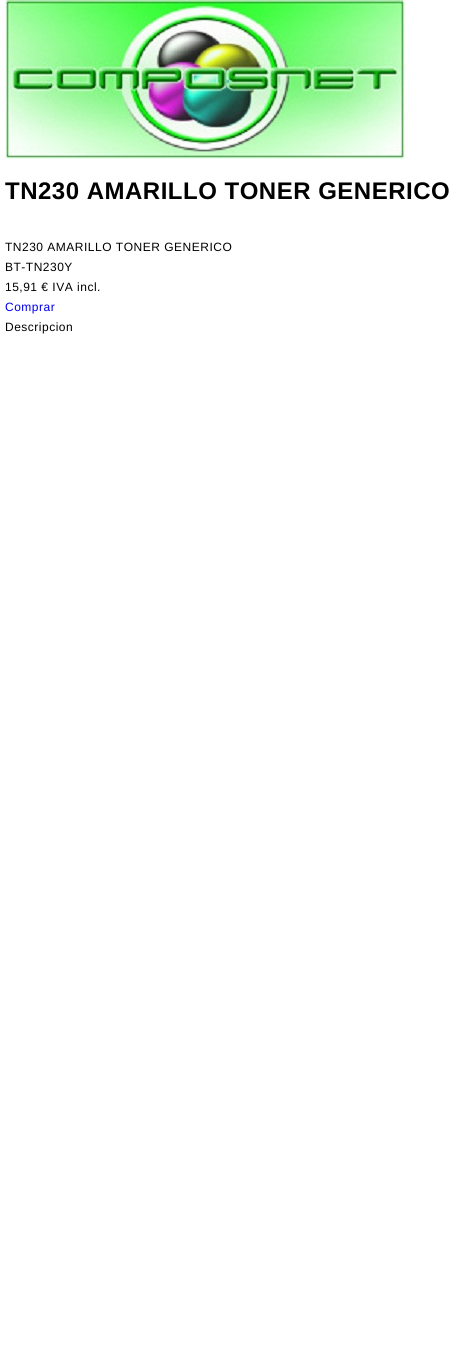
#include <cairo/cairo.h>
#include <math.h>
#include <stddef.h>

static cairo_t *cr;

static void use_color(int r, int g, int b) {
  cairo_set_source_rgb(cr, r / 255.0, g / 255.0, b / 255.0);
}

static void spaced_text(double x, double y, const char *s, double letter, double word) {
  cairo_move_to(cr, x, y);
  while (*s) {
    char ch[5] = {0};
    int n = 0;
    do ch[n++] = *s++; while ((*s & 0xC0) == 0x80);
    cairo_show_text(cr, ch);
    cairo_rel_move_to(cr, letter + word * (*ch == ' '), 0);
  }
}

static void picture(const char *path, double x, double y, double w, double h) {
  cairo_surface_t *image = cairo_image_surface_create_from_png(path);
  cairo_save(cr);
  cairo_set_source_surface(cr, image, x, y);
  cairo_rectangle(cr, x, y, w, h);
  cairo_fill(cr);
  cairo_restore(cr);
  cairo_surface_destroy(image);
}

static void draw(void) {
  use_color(255, 255, 255);
  cairo_paint(cr);
  picture("img_01.png", 5, 0, 400, 159);
  cairo_select_font_face(cr, "Liberation Sans", CAIRO_FONT_SLANT_NORMAL, CAIRO_FONT_WEIGHT_BOLD);
  cairo_set_font_size(cr, 24);
  use_color(0, 0, 0);
  spaced_text(5, 199, "TN230 AMARILLO TONER GENERICO", 0.5, 0);
  cairo_select_font_face(cr, "Liberation Sans", CAIRO_FONT_SLANT_NORMAL, CAIRO_FONT_WEIGHT_NORMAL);
  cairo_set_font_size(cr, 12);
  spaced_text(5, 251, "TN230 AMARILLO TONER GENERICO", 0.5, 0);
  spaced_text(5, 271, "BT-TN230Y", 0.5, 0);
  spaced_text(5, 291, "15,91 € IVA incl.", 0.5, 0);
  use_color(0, 0, 238);
  spaced_text(5, 311, "Comprar", 0.5, 0);
  use_color(0, 0, 0);
  spaced_text(5, 331, "Descripcion", 0.5, 0);
}

int main(void) {
  cairo_surface_t *surface = cairo_image_surface_create(CAIRO_FORMAT_RGB24, 465, 1364);
  cr = cairo_create(surface);
  cairo_font_options_t *options = cairo_font_options_create();
  cairo_font_options_set_hint_metrics(options, CAIRO_HINT_METRICS_OFF);
  cairo_font_options_set_hint_style(options, CAIRO_HINT_STYLE_NONE);
  cairo_set_font_options(cr, options);
  cairo_set_miter_limit(cr, 4);
  draw();
  cairo_surface_write_to_png(surface, "out.png");
  cairo_font_options_destroy(options);
  cairo_destroy(cr);
  cairo_surface_destroy(surface);
  return 0;
}
